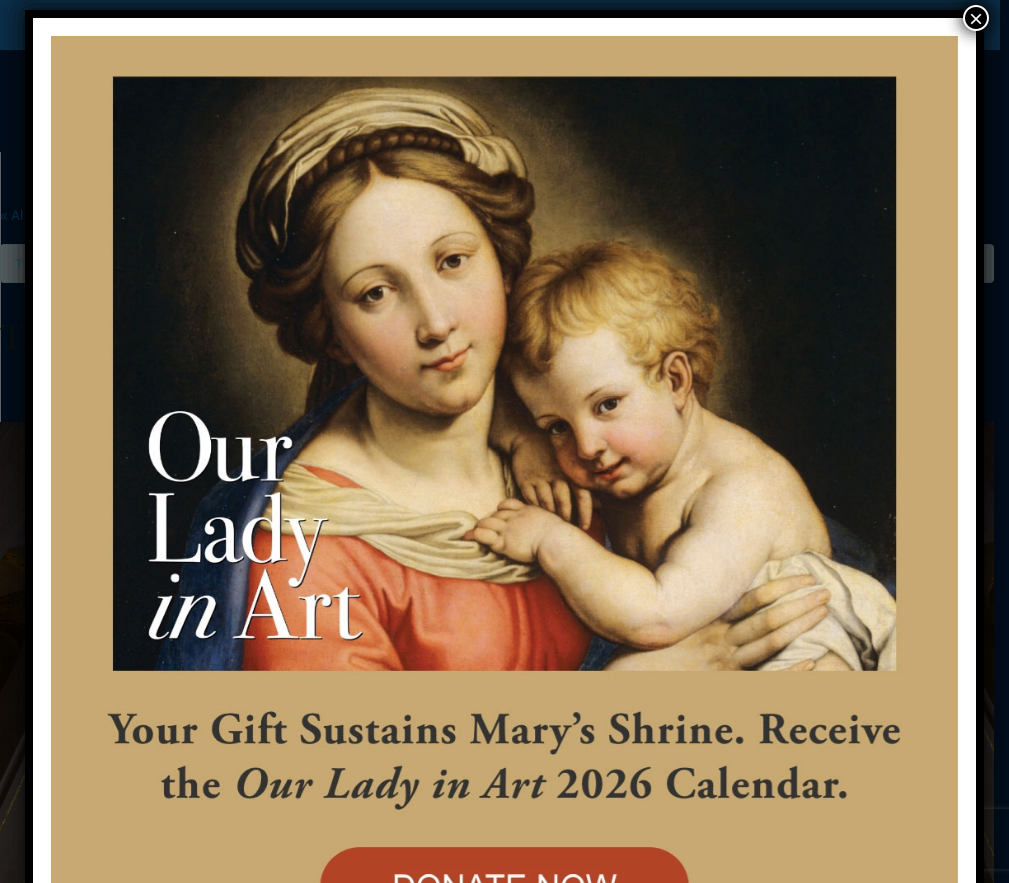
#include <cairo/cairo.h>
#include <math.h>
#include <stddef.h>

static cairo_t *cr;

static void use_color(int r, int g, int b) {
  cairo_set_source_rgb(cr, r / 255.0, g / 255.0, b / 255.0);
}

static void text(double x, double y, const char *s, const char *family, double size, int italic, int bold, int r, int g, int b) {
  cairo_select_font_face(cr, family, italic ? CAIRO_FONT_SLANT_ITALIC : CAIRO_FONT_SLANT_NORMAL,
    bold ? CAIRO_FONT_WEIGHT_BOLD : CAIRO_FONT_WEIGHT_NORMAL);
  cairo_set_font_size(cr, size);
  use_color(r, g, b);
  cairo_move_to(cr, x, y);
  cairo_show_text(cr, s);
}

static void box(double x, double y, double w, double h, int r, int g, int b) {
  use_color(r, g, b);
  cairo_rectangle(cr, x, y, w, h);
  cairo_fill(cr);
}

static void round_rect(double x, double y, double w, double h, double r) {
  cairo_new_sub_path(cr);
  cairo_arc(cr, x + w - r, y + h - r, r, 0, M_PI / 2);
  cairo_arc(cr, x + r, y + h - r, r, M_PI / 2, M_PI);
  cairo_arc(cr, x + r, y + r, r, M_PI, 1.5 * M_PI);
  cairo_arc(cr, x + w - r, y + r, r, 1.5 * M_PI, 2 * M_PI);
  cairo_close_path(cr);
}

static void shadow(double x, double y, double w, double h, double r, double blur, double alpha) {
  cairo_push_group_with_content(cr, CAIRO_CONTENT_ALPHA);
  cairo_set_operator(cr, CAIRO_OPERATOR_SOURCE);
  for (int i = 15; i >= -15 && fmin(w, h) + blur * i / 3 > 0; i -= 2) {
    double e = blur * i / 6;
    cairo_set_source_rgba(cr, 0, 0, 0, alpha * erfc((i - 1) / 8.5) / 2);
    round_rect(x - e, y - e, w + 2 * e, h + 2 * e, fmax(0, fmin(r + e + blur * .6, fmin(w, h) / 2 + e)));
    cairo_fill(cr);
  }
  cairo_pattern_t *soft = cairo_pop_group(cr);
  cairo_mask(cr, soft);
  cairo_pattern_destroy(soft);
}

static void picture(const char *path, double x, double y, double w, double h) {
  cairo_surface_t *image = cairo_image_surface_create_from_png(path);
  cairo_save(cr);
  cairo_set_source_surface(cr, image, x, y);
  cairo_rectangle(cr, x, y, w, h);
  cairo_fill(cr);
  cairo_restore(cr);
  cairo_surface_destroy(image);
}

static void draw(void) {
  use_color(102, 102, 102);
  cairo_paint(cr);
  box(0, 0, 1009, 152, 0, 13, 28);
  box(0, 0, 1000, 50, 11, 47, 75);
  box(1, 152, 1008, 731, 0, 13, 28);
  use_color(87, 95, 99);
  round_rect(0.5, 244.5, 993, 38, 3.5);
  cairo_fill_preserve(cr);
  use_color(75, 93, 96);
  cairo_set_line_width(cr, 1);
  cairo_stroke(cr);
  picture("img_02.png", 0, 324, 25, 26);
  picture("img_03.png", 0, 422, 994, 461);
  use_color(2, 2, 2);
  shadow(25, 10, 959, 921, 3, 15, 1);
  cairo_save(cr);
  cairo_set_fill_rule(cr, CAIRO_FILL_RULE_EVEN_ODD);
  cairo_new_path(cr);
  cairo_move_to(cr, 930, 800);
  cairo_line_to(cr, 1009, 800);
  cairo_line_to(cr, 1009, 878);
  cairo_line_to(cr, 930, 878);
  cairo_close_path(cr);
  cairo_move_to(cr, 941, 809);
  cairo_line_to(cr, 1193, 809);
  cairo_curve_to(cr, 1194, 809, 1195, 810, 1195, 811);
  cairo_line_to(cr, 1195, 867);
  cairo_curve_to(cr, 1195, 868, 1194, 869, 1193, 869);
  cairo_line_to(cr, 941, 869);
  cairo_curve_to(cr, 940, 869, 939, 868, 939, 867);
  cairo_line_to(cr, 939, 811);
  cairo_curve_to(cr, 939, 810, 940, 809, 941, 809);
  cairo_close_path(cr);
  cairo_clip(cr);
  use_color(51, 51, 51);
  shadow(939, 809, 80, 60, 2, 2.5, 1);
  cairo_restore(cr);
  box(33, 18, 943, 865, 255, 255, 255);
  cairo_new_path(cr);
  cairo_move_to(cr, 29, 14);
  cairo_line_to(cr, 980, 14);
  cairo_line_to(cr, 980, 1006);
  cairo_line_to(cr, 29, 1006);
  cairo_close_path(cr);
  use_color(0, 0, 0);
  cairo_set_line_width(cr, 8);
  cairo_stroke(cr);
  picture("img_01.png", 51, 36, 907, 847);
  use_color(2, 2, 2);
  shadow(962, 4, 28, 28, 14, 7.5, 0.75);
  use_color(0, 0, 0);
  cairo_arc(cr, 976, 18, 12, 0, 2 * M_PI);
  cairo_fill_preserve(cr);
  use_color(255, 255, 255);
  cairo_set_line_width(cr, 2);
  cairo_stroke(cr);
  text(969, 27, "×", "Liberation Sans", 24, 0, 0, 255, 255, 255);
  text(0, 220, "« Al", "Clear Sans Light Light", 14, 0, 0, 11, 47, 75);
  text(15, 269, "T", "Clear Sans Light Light", 14, 0, 0, 23, 54, 69);
}

int main(void) {
  cairo_surface_t *surface = cairo_image_surface_create(CAIRO_FORMAT_RGB24, 1009, 883);
  cr = cairo_create(surface);
  cairo_font_options_t *options = cairo_font_options_create();
  cairo_font_options_set_hint_metrics(options, CAIRO_HINT_METRICS_OFF);
  cairo_font_options_set_hint_style(options, CAIRO_HINT_STYLE_NONE);
  cairo_set_font_options(cr, options);
  cairo_set_miter_limit(cr, 4);
  draw();
  cairo_surface_write_to_png(surface, "out.png");
  cairo_font_options_destroy(options);
  cairo_destroy(cr);
  cairo_surface_destroy(surface);
  return 0;
}
